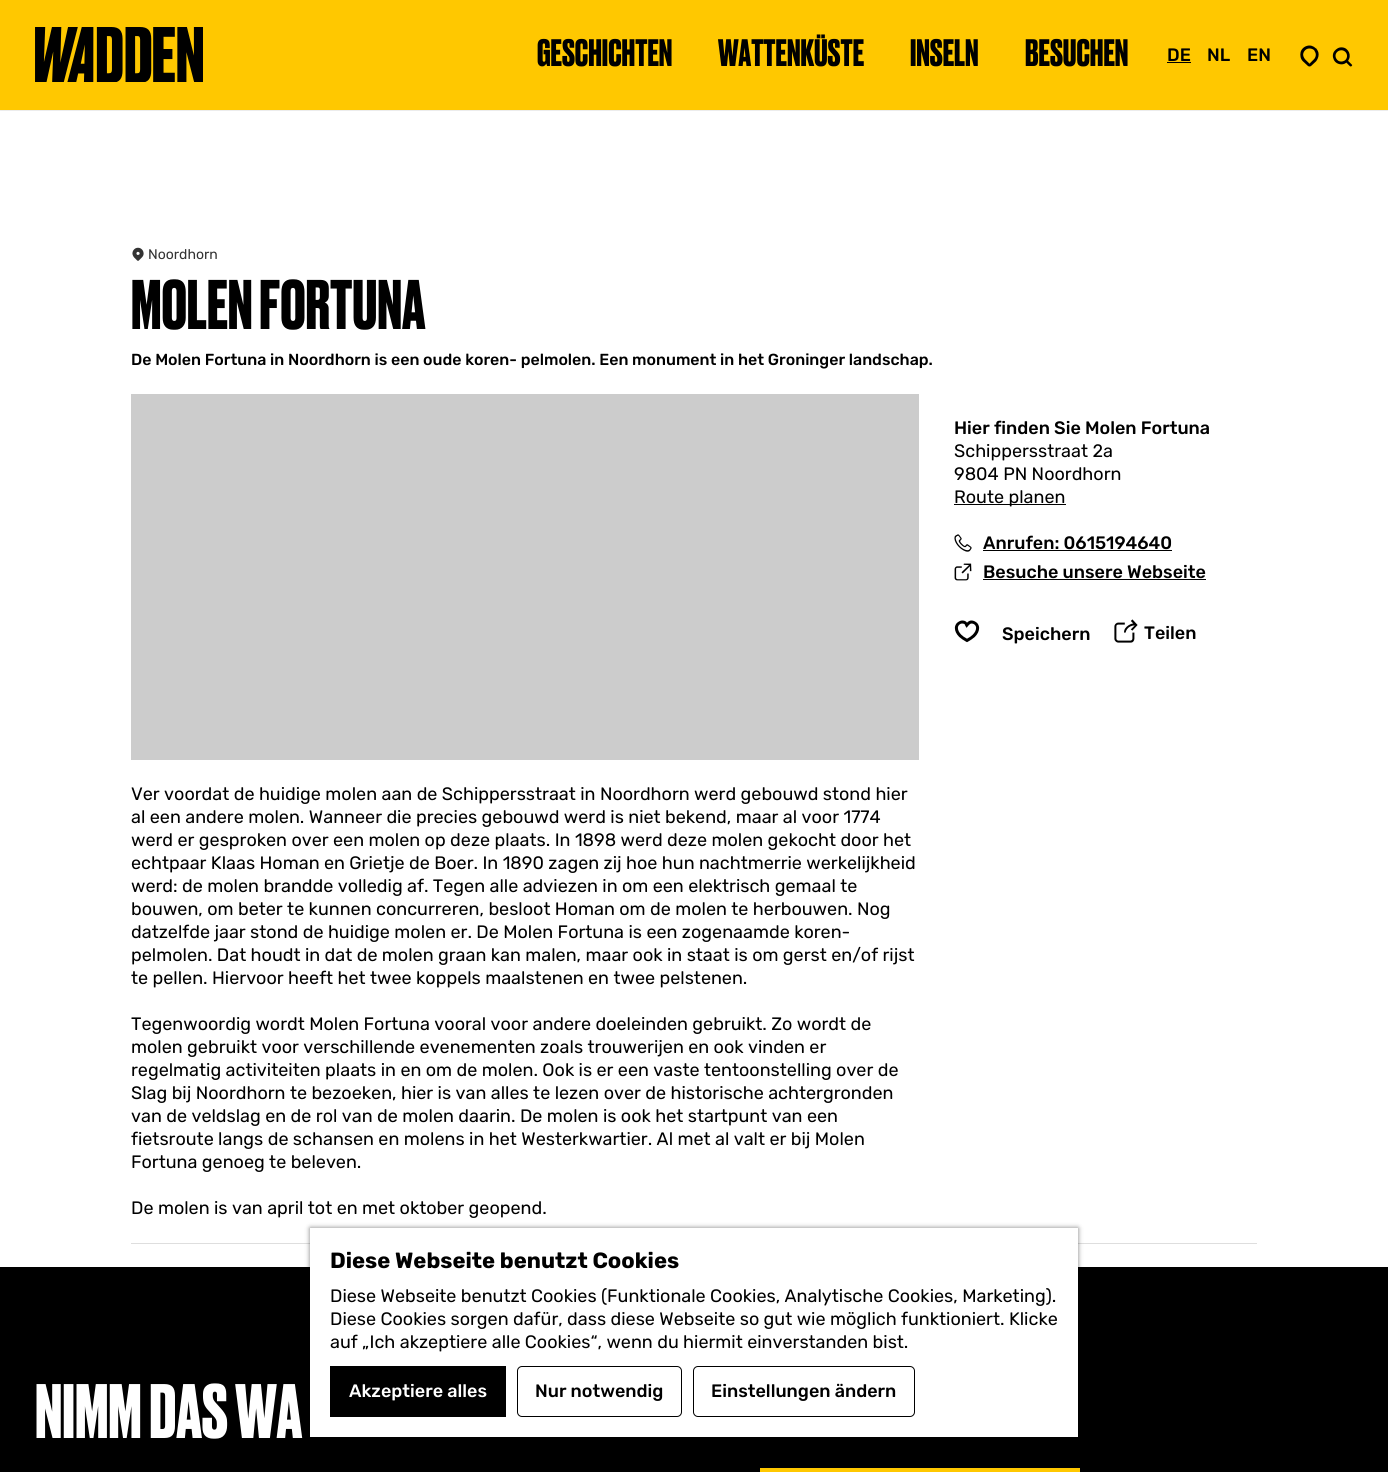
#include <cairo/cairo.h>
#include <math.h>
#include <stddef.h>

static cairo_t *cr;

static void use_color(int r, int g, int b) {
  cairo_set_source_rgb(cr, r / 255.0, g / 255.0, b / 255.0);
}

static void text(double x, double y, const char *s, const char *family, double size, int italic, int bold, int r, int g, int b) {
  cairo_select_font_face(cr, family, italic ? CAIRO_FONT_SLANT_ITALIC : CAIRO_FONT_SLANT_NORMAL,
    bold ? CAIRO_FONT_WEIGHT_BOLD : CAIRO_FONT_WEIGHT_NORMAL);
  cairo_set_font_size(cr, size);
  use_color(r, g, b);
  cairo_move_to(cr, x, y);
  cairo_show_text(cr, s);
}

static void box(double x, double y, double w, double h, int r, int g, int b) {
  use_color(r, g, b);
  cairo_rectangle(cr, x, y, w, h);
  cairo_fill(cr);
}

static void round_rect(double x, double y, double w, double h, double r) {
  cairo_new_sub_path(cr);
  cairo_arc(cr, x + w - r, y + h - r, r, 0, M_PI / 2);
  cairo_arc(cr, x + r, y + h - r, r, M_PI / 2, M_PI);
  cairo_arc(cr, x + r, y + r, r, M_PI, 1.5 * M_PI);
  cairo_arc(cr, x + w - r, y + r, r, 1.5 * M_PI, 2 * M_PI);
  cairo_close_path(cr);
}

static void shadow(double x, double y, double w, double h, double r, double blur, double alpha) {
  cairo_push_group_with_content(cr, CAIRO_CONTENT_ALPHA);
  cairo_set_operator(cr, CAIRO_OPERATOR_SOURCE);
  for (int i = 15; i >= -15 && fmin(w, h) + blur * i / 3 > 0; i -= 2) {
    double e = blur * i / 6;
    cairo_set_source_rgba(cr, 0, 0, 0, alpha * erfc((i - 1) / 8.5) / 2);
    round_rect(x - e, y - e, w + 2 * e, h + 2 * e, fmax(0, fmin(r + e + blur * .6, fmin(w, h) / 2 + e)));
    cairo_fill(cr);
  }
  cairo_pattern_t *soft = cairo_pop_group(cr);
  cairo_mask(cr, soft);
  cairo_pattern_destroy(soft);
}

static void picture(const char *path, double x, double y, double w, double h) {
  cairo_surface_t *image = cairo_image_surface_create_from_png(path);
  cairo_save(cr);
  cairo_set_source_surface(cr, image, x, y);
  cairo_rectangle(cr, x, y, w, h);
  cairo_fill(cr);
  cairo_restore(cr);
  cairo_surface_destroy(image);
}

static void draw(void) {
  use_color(255, 255, 255);
  cairo_paint(cr);
  use_color(0, 0, 0);
  shadow(0, 0, 1388, 110, 0, 0.5, 0.3);
  box(0, 0, 1388, 110, 255, 200, 0);
  picture("img_01.png", 35, 27, 168, 55);
  box(1167, 62, 24, 1, 0, 0, 0);
  picture("img_02.png", 1300, 45, 19, 22);
  picture("img_03.png", 1332, 47, 21, 20);
  picture("img_04.png", 132, 247, 12, 14);
  box(954, 504, 112, 1, 0, 0, 0);
  picture("img_05.png", 954, 534, 18, 18);
  box(983, 550, 189, 1, 0, 0, 0);
  picture("img_06.png", 954, 563, 18, 18);
  box(983, 579, 223, 1, 0, 0, 0);
  picture("img_07.png", 954, 620, 26, 23);
  picture("img_08.png", 1114, 619, 24, 24);
  box(131, 394, 788, 366, 204, 204, 204);
  box(131, 1243, 1126, 1, 222, 222, 222);
  box(0, 1267, 1388, 205, 0, 0, 0);
  use_color(0, 0, 0);
  shadow(310, 1228, 768, 209, 0, 2.5, 0.5);
  box(310, 1228, 768, 209, 255, 255, 255);
  box(330, 1366, 176, 51, 0, 0, 0);
  round_rect(517.5, 1366.5, 164, 50, 4.5);
  cairo_set_line_width(cr, 1);
  cairo_stroke(cr);
  round_rect(693.5, 1366.5, 221, 50, 4.5);
  cairo_stroke(cr);
  box(760, 1468, 320, 4, 255, 200, 0);
  text(537, 66, "GESCHICHTEN", "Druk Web", 36, 0, 1, 0, 0, 0);
  text(718, 66, "WATTENKÜSTE", "Druk Web", 36, 0, 1, 0, 0, 0);
  text(910, 66, "INSELN", "Druk Web", 36, 0, 1, 0, 0, 0);
  text(1025, 66, "BESUCHEN", "Druk Web", 36, 0, 1, 0, 0, 0);
  text(1167, 61, "DE", "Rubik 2 Light", 18, 0, 0, 0, 0, 0);
  text(1207, 61, "NL", "Rubik 2 Light", 18, 0, 0, 0, 0, 0);
  text(1247, 61, "EN", "Rubik 2 Light", 18, 0, 0, 0, 0, 0);
  text(148, 259, "Noordhorn", "Rubik Light", 14, 0, 0, 51, 51, 51);
  text(131, 329, "MOLEN FORTUNA", "Druk Web", 66, 0, 1, 0, 0, 0);
  text(131, 365, "De Molen Fortuna in Noordhorn is een oude koren- pelmolen. Een monument in het Groninger landschap.", "Rubik 2 Light", 16, 0, 0, 0, 0, 0);
  text(954, 434, "Hier finden Sie Molen Fortuna", "Rubik 2 Light", 18, 0, 0, 0, 0, 0);
  text(954, 457, "Schippersstraat 2a", "Rubik Light", 18, 0, 0, 0, 0, 0);
  text(954, 480, "9804 PN Noordhorn", "Rubik Light", 18, 0, 0, 0, 0, 0);
  text(954, 503, "Route planen", "Rubik Light", 18, 0, 0, 0, 0, 0);
  text(983, 549, "Anrufen: 0615194640", "Rubik 2 Light", 18, 0, 0, 0, 0, 0);
  text(983, 578, "Besuche unsere Webseite", "Rubik 2 Light", 18, 0, 0, 0, 0, 0);
  text(1002, 640, "Speichern", "Rubik 2 Light", 18, 0, 0, 0, 0, 0);
  text(1144, 639, "Teilen", "Rubik 2 Light", 18, 0, 0, 0, 0, 0);
  text(131, 800, "Ver voordat de huidige molen aan de Schippersstraat in Noordhorn werd gebouwd stond hier", "Rubik Light", 18, 0, 0, 0, 0, 0);
  text(131, 823, "al een andere molen. Wanneer die precies gebouwd werd is niet bekend, maar al voor 1774", "Rubik Light", 18, 0, 0, 0, 0, 0);
  text(131, 846, "werd er gesproken over een molen op deze plaats. In 1898 werd deze molen gekocht door het", "Rubik Light", 18, 0, 0, 0, 0, 0);
  text(131, 869, "echtpaar Klaas Homan en Grietje de Boer. In 1890 zagen zij hoe hun nachtmerrie werkelijkheid", "Rubik Light", 18, 0, 0, 0, 0, 0);
  text(131, 892, "werd: de molen brandde volledig af. Tegen alle adviezen in om een elektrisch gemaal te", "Rubik Light", 18, 0, 0, 0, 0, 0);
  text(131, 915, "bouwen, om beter te kunnen concurreren, besloot Homan om de molen te herbouwen. Nog", "Rubik Light", 18, 0, 0, 0, 0, 0);
  text(131, 938, "datzelfde jaar stond de huidige molen er. De Molen Fortuna is een zogenaamde koren-", "Rubik Light", 18, 0, 0, 0, 0, 0);
  text(131, 961, "pelmolen. Dat houdt in dat de molen graan kan malen, maar ook in staat is om gerst en/of rijst", "Rubik Light", 18, 0, 0, 0, 0, 0);
  text(131, 984, "te pellen. Hiervoor heeft het twee koppels maalstenen en twee pelstenen.", "Rubik Light", 18, 0, 0, 0, 0, 0);
  text(131, 1030, "Tegenwoordig wordt Molen Fortuna vooral voor andere doeleinden gebruikt. Zo wordt de", "Rubik Light", 18, 0, 0, 0, 0, 0);
  text(131, 1053, "molen gebruikt voor verschillende evenementen zoals trouwerijen en ook vinden er", "Rubik Light", 18, 0, 0, 0, 0, 0);
  text(131, 1076, "regelmatig activiteiten plaats in en om de molen. Ook is er een vaste tentoonstelling over de", "Rubik Light", 18, 0, 0, 0, 0, 0);
  text(131, 1099, "Slag bij Noordhorn te bezoeken, hier is van alles te lezen over de historische achtergronden", "Rubik Light", 18, 0, 0, 0, 0, 0);
  text(131, 1122, "van de veldslag en de rol van de molen daarin. De molen is ook het startpunt van een", "Rubik Light", 18, 0, 0, 0, 0, 0);
  text(131, 1145, "fietsroute langs de schansen en molens in het Westerkwartier. Al met al valt er bij Molen", "Rubik Light", 18, 0, 0, 0, 0, 0);
  text(131, 1168, "Fortuna genoeg te beleven.", "Rubik Light", 18, 0, 0, 0, 0, 0);
  text(131, 1214, "De molen is van april tot en met oktober geopend.", "Rubik Light", 18, 0, 0, 0, 0, 0);
  text(330, 1268, "Diese Webseite benutzt Cookies", "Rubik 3 Light", 22, 0, 0, 0, 0, 0);
  text(330, 1302, "Diese Webseite benutzt Cookies (Funktionale Cookies, Analytische Cookies, Marketing).", "Rubik Light", 18, 0, 0, 0, 0, 0);
  text(330, 1325, "Diese Cookies sorgen dafür, dass diese Webseite so gut wie möglich funktioniert. Klicke", "Rubik Light", 18, 0, 0, 0, 0, 0);
  text(330, 1348, "auf „Ich akzeptiere alle Cookies“, wenn du hiermit einverstanden bist.", "Rubik Light", 18, 0, 0, 0, 0, 0);
  text(349, 1397, "Akzeptiere alles", "Rubik 2 Light", 18, 0, 0, 255, 255, 255);
  text(535, 1397, "Nur notwendig", "Rubik 2 Light", 18, 0, 0, 0, 0, 0);
  text(711, 1397, "Einstellungen ändern", "Rubik 2 Light", 18, 0, 0, 0, 0, 0);
  text(35, 1438, "NIMM DAS WA", "Druk Web", 72.5, 0, 1, 255, 255, 255);
}

int main(void) {
  cairo_surface_t *surface = cairo_image_surface_create(CAIRO_FORMAT_RGB24, 1388, 1472);
  cr = cairo_create(surface);
  cairo_font_options_t *options = cairo_font_options_create();
  cairo_font_options_set_hint_metrics(options, CAIRO_HINT_METRICS_OFF);
  cairo_font_options_set_hint_style(options, CAIRO_HINT_STYLE_NONE);
  cairo_set_font_options(cr, options);
  cairo_set_miter_limit(cr, 4);
  draw();
  cairo_surface_write_to_png(surface, "out.png");
  cairo_font_options_destroy(options);
  cairo_destroy(cr);
  cairo_surface_destroy(surface);
  return 0;
}
